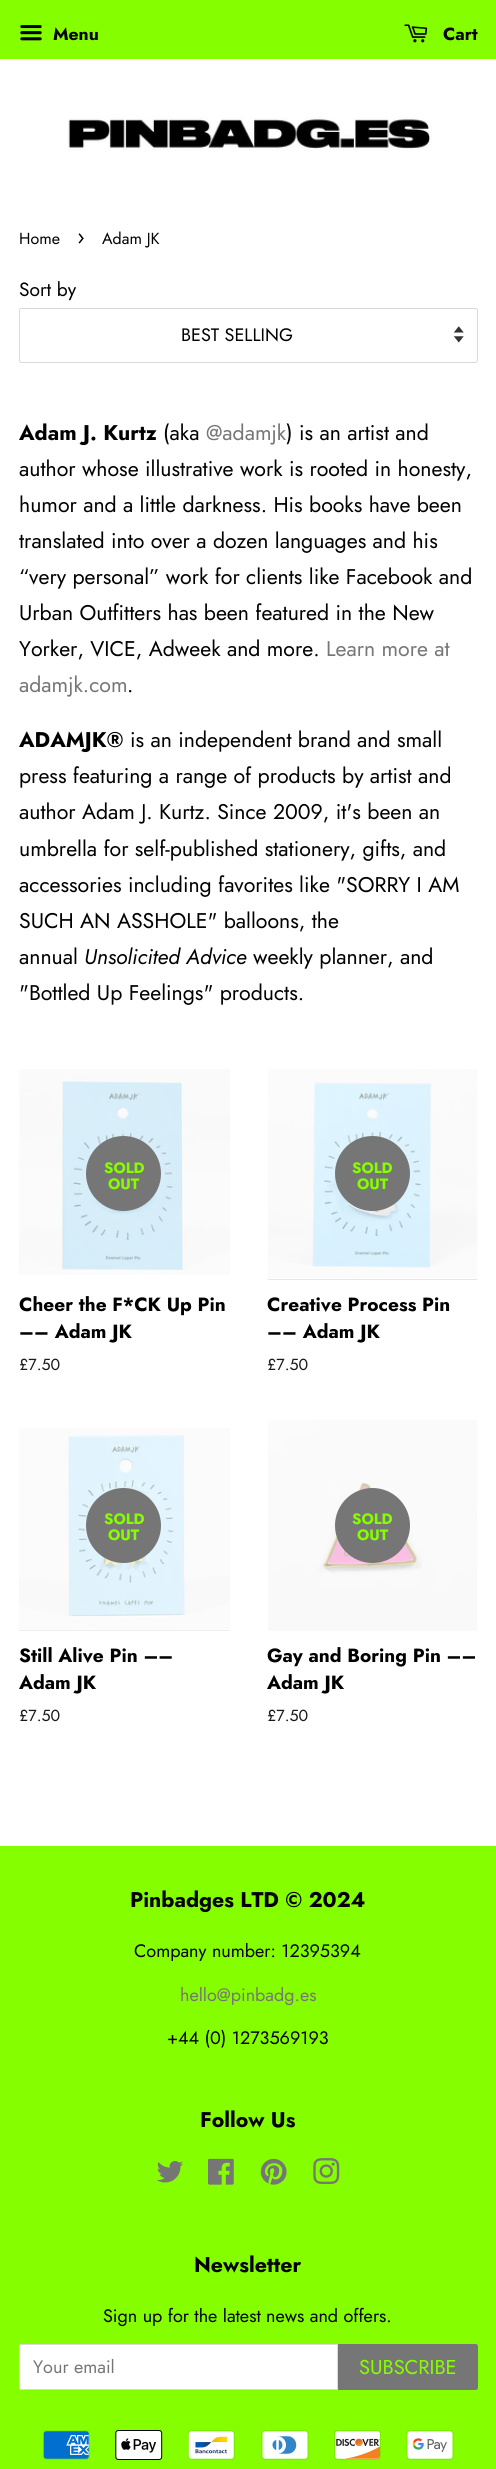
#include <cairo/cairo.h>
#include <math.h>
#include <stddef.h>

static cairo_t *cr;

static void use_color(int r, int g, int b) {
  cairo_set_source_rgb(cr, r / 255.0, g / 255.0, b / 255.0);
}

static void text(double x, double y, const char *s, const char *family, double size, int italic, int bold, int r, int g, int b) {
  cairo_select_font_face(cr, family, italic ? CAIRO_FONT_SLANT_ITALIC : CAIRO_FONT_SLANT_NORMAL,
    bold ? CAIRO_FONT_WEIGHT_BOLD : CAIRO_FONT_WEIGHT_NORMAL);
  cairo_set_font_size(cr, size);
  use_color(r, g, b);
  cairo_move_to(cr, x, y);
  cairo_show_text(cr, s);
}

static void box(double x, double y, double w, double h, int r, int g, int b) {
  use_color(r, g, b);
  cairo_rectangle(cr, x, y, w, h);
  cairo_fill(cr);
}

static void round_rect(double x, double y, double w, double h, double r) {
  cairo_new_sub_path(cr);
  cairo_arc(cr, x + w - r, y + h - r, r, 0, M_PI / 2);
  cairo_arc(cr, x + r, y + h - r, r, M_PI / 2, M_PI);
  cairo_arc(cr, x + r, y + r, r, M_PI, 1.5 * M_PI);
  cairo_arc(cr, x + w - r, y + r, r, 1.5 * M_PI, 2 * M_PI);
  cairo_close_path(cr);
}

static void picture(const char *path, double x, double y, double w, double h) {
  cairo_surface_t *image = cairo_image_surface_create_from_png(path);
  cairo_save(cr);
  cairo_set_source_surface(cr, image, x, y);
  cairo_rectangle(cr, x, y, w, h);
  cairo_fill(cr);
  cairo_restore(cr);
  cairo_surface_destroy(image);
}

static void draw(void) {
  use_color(255, 255, 255);
  cairo_paint(cr);
  box(0, 0, 496, 59, 133, 255, 0);
  picture("img_01.png", 20, 25, 22, 16);
  picture("img_02.png", 404, 24, 24, 19);
  picture("img_03.png", 68, 117, 364, 34);
  picture("img_04.png", 454, 326, 10, 17);
  round_rect(19.5, 308.5, 458, 54, 2);
  use_color(217, 217, 217);
  cairo_set_line_width(cr, 1);
  cairo_stroke(cr);
  picture("img_05.png", 19, 1069, 211, 206);
  use_color(118, 118, 118);
  cairo_arc(cr, 123.5, 1173.5, 37.5, 0, 2 * M_PI);
  cairo_fill(cr);
  picture("img_06.png", 267, 1069, 211, 211);
  cairo_arc(cr, 372.5, 1173.5, 37.5, 0, 2 * M_PI);
  cairo_fill(cr);
  picture("img_07.png", 19, 1428, 211, 203);
  cairo_arc(cr, 123.5, 1525.5, 37.5, 0, 2 * M_PI);
  cairo_fill(cr);
  picture("img_08.png", 268, 1420, 209, 211);
  cairo_arc(cr, 372.5, 1525.5, 37.5, 0, 2 * M_PI);
  cairo_fill(cr);
  box(0, 1846, 496, 623, 133, 255, 0);
  picture("img_09.png", 156, 2161, 27, 22);
  picture("img_10.png", 208, 2158, 26, 27);
  picture("img_11.png", 260, 2158, 27, 27);
  picture("img_12.png", 313, 2158, 27, 26);
  use_color(255, 255, 255);
  cairo_new_path(cr);
  cairo_move_to(cr, 21.5, 2344);
  cairo_line_to(cr, 338, 2344);
  cairo_line_to(cr, 338, 2390);
  cairo_line_to(cr, 21.5, 2390);
  cairo_curve_to(cr, 20, 2390, 19, 2389, 19, 2387.5);
  cairo_line_to(cr, 19, 2346.5);
  cairo_curve_to(cr, 19, 2345, 20, 2344, 21.5, 2344);
  cairo_close_path(cr);
  cairo_fill(cr);
  cairo_new_path(cr);
  cairo_move_to(cr, 21.5, 2344.5);
  cairo_line_to(cr, 337.5, 2344.5);
  cairo_line_to(cr, 337.5, 2389.5);
  cairo_line_to(cr, 21.5, 2389.5);
  cairo_curve_to(cr, 20.5, 2389.5, 19.5, 2388.5, 19.5, 2387.5);
  cairo_line_to(cr, 19.5, 2346.5);
  cairo_curve_to(cr, 19.5, 2345.5, 20.5, 2344.5, 21.5, 2344.5);
  cairo_close_path(cr);
  cairo_set_source_rgba(cr, 0, 0, 0, 0.15);
  cairo_stroke(cr);
  use_color(118, 118, 118);
  cairo_new_path(cr);
  cairo_move_to(cr, 338, 2344);
  cairo_line_to(cr, 475.5, 2344);
  cairo_curve_to(cr, 477, 2344, 478, 2345, 478, 2346.5);
  cairo_line_to(cr, 478, 2387.5);
  cairo_curve_to(cr, 478, 2389, 477, 2390, 475.5, 2390);
  cairo_line_to(cr, 338, 2390);
  cairo_close_path(cr);
  cairo_fill(cr);
  picture("img_13.png", 43, 2430, 47, 30);
  picture("img_14.png", 115, 2430, 48, 30);
  picture("img_15.png", 188, 2430, 47, 30);
  picture("img_16.png", 261, 2430, 48, 30);
  picture("img_17.png", 334, 2430, 47, 30);
  picture("img_18.png", 406, 2430, 48, 30);
  text(53, 40, "Menu", "Jost", 17.5, 0, 1, 0, 0, 0);
  text(443, 40, "Cart", "Jost", 17.5, 0, 1, 0, 0, 0);
  text(19, 244, "Home", "Jost", 16, 0, 0, 0, 0, 0);
  text(77, 244, "›", "Jost", 22, 0, 0, 0, 0, 0);
  text(102, 244, "Adam JK", "Jost", 16, 0, 0, 0, 0, 0);
  text(19, 296, "Sort by", "Jost", 19.1, 0, 0, 0, 0, 0);
  text(181, 341, "BEST SELLING", "Jost", 18, 0, 0, 0, 0, 0);
  text(19, 440, "Adam J. Kurtz", "Jost", 21.25, 0, 1, 0, 0, 0);
  text(163, 440, "(aka", "Jost", 21.25, 0, 0, 0, 0, 0);
  text(206, 440, "@adamjk", "Jost", 21.25, 0, 0, 118, 118, 118);
  text(286, 440, ") is an artist and", "Jost", 21.25, 0, 0, 0, 0, 0);
  text(19, 476, "author whose illustrative work is rooted in honesty,", "Jost", 21.25, 0, 0, 0, 0, 0);
  text(19, 512, "humor and a little darkness. His books have been", "Jost", 21.25, 0, 0, 0, 0, 0);
  text(19, 548, "translated into over a dozen languages and his", "Jost", 21.25, 0, 0, 0, 0, 0);
  text(19, 584, "“very personal” work for clients like Facebook and", "Jost", 21.25, 0, 0, 0, 0, 0);
  text(19, 620, "Urban Outfitters has been featured in the New", "Jost", 21.25, 0, 0, 0, 0, 0);
  text(19, 656, "Yorker, VICE, Adweek and more.", "Jost", 21.25, 0, 0, 0, 0, 0);
  text(326, 656, "Learn more at", "Jost", 21.25, 0, 0, 118, 118, 118);
  text(19, 692, "adamjk.com", "Jost", 21.25, 0, 0, 118, 118, 118);
  text(127, 692, ".", "Jost", 21.25, 0, 0, 0, 0, 0);
  text(19, 747, "ADAMJK®", "Jost", 21.25, 0, 1, 0, 0, 0);
  text(130, 747, "is an independent brand and small", "Jost", 21.25, 0, 0, 0, 0, 0);
  text(19, 783, "press featuring a range of products by artist and", "Jost", 21.25, 0, 0, 0, 0, 0);
  text(19, 819, "author Adam J. Kurtz. Since 2009, it's been an", "Jost", 21.25, 0, 0, 0, 0, 0);
  text(19, 856, "umbrella for self-published stationery, gifts, and", "Jost", 21.25, 0, 0, 0, 0, 0);
  text(19, 892, "accessories including favorites like \"SORRY I AM", "Jost", 21.25, 0, 0, 0, 0, 0);
  text(19, 928, "SUCH AN ASSHOLE\" balloons, the", "Jost", 21.25, 0, 0, 0, 0, 0);
  text(19, 964, "annual", "Jost", 21.25, 0, 0, 0, 0, 0);
  text(84, 964, "Unsolicited Advice", "Jost", 21.25, 1, 0, 0, 0, 0);
  text(253, 964, "weekly planner, and", "Jost", 21.25, 0, 0, 0, 0, 0);
  text(19, 1000, "\"Bottled Up Feelings\" products.", "Jost", 21.25, 0, 0, 0, 0, 0);
  text(104, 1173, "SOLD", "Jost", 15, 0, 1, 133, 255, 0);
  text(108, 1189, "OUT", "Jost", 15, 0, 1, 133, 255, 0);
  text(19, 1311, "Cheer the F*CK Up Pin", "Jost", 19.1, 0, 1, 0, 0, 0);
  text(19, 1338, "–– Adam JK", "Jost", 19.1, 0, 1, 0, 0, 0);
  text(19, 1370, "£7.50", "Jost", 16, 0, 0, 26, 26, 26);
  text(352, 1173, "SOLD", "Jost", 15, 0, 1, 133, 255, 0);
  text(357, 1189, "OUT", "Jost", 15, 0, 1, 133, 255, 0);
  text(267, 1311, "Creative Process Pin", "Jost", 19.1, 0, 1, 0, 0, 0);
  text(267, 1338, "–– Adam JK", "Jost", 19.1, 0, 1, 0, 0, 0);
  text(267, 1370, "£7.50", "Jost", 16, 0, 0, 26, 26, 26);
  text(104, 1524, "SOLD", "Jost", 15, 0, 1, 133, 255, 0);
  text(108, 1540, "OUT", "Jost", 15, 0, 1, 133, 255, 0);
  text(19, 1662, "Still Alive Pin ––", "Jost", 19.1, 0, 1, 0, 0, 0);
  text(19, 1689, "Adam JK", "Jost", 19.1, 0, 1, 0, 0, 0);
  text(19, 1721, "£7.50", "Jost", 16, 0, 0, 26, 26, 26);
  text(352, 1524, "SOLD", "Jost", 15, 0, 1, 133, 255, 0);
  text(357, 1540, "OUT", "Jost", 15, 0, 1, 133, 255, 0);
  text(267, 1662, "Gay and Boring Pin ––", "Jost", 19.1, 0, 1, 0, 0, 0);
  text(267, 1689, "Adam JK", "Jost", 19.1, 0, 1, 0, 0, 0);
  text(267, 1721, "£7.50", "Jost", 16, 0, 0, 26, 26, 26);
  text(130, 1907, "Pinbadges LTD © 2024", "Jost", 21.25, 0, 1, 0, 0, 0);
  text(134, 1957, "Company number: 12395394", "Jost", 18, 0, 0, 0, 0, 0);
  text(180, 2001, "hello@pinbadg.es", "Jost", 18, 0, 0, 118, 118, 118);
  text(167, 2044, "+44 (0) 1273569193", "Jost", 18, 0, 0, 0, 0, 0);
  text(200, 2127, "Follow Us", "Jost", 21.25, 0, 1, 0, 0, 0);
  text(194, 2272, "Newsletter", "Jost", 21.25, 0, 1, 0, 0, 0);
  text(103, 2322, "Sign up for the latest news and offers.", "Jost", 18, 0, 0, 0, 0, 0);
  text(33, 2373, "Your email", "Jost", 18, 0, 0, 118, 118, 118);
  text(359, 2374, "SUBSCRIBE", "Jost", 20, 0, 0, 133, 255, 0);
}

int main(void) {
  cairo_surface_t *surface = cairo_image_surface_create(CAIRO_FORMAT_RGB24, 496, 2469);
  cr = cairo_create(surface);
  cairo_font_options_t *options = cairo_font_options_create();
  cairo_font_options_set_hint_metrics(options, CAIRO_HINT_METRICS_OFF);
  cairo_font_options_set_hint_style(options, CAIRO_HINT_STYLE_NONE);
  cairo_set_font_options(cr, options);
  cairo_set_miter_limit(cr, 4);
  draw();
  cairo_surface_write_to_png(surface, "out.png");
  cairo_font_options_destroy(options);
  cairo_destroy(cr);
  cairo_surface_destroy(surface);
  return 0;
}
